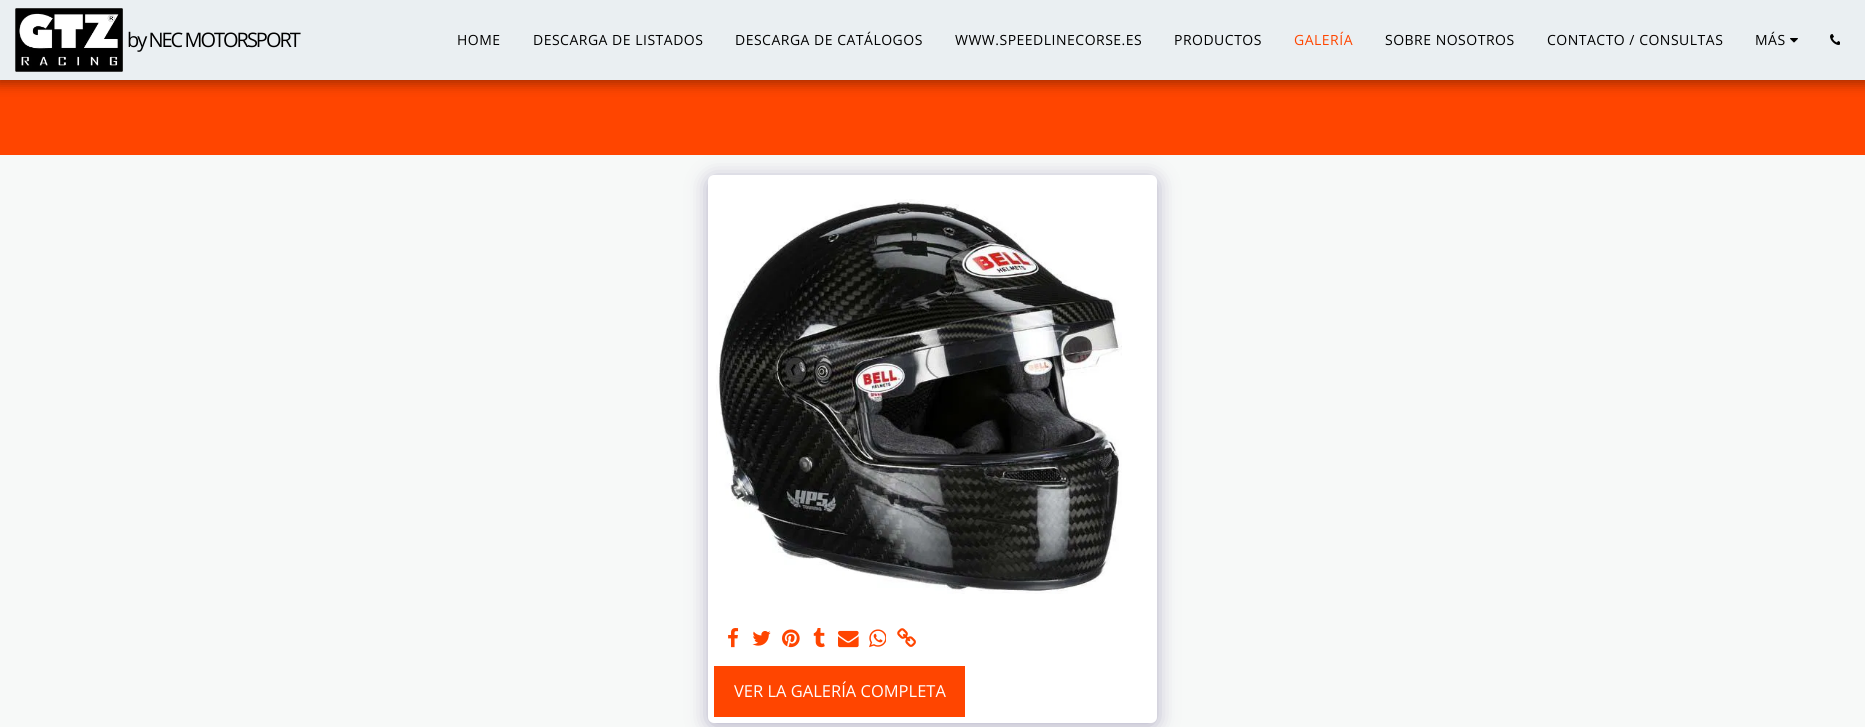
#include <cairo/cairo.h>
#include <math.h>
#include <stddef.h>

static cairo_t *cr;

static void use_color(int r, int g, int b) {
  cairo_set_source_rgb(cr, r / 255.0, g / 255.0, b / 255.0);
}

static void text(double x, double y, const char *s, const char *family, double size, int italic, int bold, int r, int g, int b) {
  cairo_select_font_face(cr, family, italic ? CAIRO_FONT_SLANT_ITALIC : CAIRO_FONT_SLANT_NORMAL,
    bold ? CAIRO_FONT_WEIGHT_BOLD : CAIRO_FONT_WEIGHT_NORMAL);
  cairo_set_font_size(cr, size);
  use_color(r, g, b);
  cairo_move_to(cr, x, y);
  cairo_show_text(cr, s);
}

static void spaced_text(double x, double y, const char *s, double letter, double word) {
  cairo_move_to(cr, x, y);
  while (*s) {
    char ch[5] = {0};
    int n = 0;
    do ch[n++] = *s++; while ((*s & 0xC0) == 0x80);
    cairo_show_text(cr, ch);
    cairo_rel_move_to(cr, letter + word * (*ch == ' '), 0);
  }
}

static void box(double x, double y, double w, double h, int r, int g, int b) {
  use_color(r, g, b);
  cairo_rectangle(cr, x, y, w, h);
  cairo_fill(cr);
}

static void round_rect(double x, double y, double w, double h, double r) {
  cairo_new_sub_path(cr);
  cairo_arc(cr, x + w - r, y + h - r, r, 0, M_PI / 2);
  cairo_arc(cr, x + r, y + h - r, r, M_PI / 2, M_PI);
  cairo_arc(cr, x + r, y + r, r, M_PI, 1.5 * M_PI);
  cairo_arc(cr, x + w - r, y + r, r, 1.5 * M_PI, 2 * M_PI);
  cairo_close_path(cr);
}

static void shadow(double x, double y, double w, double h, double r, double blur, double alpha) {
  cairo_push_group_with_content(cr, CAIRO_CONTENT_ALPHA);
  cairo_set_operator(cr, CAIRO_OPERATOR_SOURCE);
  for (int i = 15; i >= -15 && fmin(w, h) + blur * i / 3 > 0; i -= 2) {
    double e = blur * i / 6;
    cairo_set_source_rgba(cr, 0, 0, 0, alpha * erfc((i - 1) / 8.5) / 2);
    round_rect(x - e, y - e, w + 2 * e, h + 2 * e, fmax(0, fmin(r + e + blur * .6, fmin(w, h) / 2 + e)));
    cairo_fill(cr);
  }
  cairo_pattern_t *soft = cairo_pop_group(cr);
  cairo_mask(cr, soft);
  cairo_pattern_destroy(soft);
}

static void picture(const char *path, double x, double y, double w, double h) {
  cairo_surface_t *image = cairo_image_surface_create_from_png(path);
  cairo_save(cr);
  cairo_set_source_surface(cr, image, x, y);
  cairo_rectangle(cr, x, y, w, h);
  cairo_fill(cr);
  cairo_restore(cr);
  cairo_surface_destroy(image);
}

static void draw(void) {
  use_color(247, 249, 248);
  cairo_paint(cr);
  box(0, 80, 1865, 75, 255, 69, 0);
  use_color(0, 0, 0);
  shadow(-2, 0, 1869, 84, 0, 6, 0.35);
  box(0, 0, 1865, 80, 234, 239, 242);
  picture("img_01.png", 15, 8, 108, 64);
  picture("img_02.png", 1790, 38, 8, 5);
  picture("img_03.png", 1830, 34, 10, 11);
  use_color(77, 63, 122);
  shadow(708, 178, 449, 548, 6, 10, 0.4);
  use_color(255, 255, 255);
  round_rect(708, 175, 449, 548, 6);
  cairo_fill(cr);
  picture("img_04.png", 716, 199, 406, 395);
  picture("img_05.png", 728, 628, 11, 20);
  picture("img_06.png", 752, 631, 19, 15);
  picture("img_07.png", 782, 629, 18, 19);
  picture("img_08.png", 813, 628, 12, 20);
  picture("img_09.png", 838, 630, 21, 18);
  picture("img_10.png", 869, 629, 17, 19);
  picture("img_11.png", 897, 628, 19, 19);
  box(714, 666, 251, 51, 255, 69, 0);
  cairo_select_font_face(cr, "Open Sans", CAIRO_FONT_SLANT_NORMAL, CAIRO_FONT_WEIGHT_NORMAL);
  cairo_set_font_size(cr, 20);
  use_color(0, 0, 0);
  spaced_text(127, 47, "by NEC MOTORSPORT", -2, 0);
  cairo_set_font_size(cr, 14);
  spaced_text(457, 45, "HOME", 0.5, 0);
  spaced_text(533, 45, "DESCARGA DE LISTADOS", 0.5, 0);
  spaced_text(735, 45, "DESCARGA DE CATÁLOGOS", 0.5, 0);
  spaced_text(955, 45, "WWW.SPEEDLINECORSE.ES", 0.5, 0);
  spaced_text(1174, 45, "PRODUCTOS", 0.5, 0);
  use_color(255, 69, 0);
  spaced_text(1294, 45, "GALERÍA", 0.5, 0);
  use_color(0, 0, 0);
  spaced_text(1385, 45, "SOBRE NOSOTROS", 0.5, 0);
  spaced_text(1547, 45, "CONTACTO / CONSULTAS", 0.5, 0);
  spaced_text(1755, 45, "MÁS", 0.5, 0);
  text(734, 697, "VER LA GALERÍA COMPLETA", "Open Sans", 16.5, 0, 0, 255, 255, 255);
}

int main(void) {
  cairo_surface_t *surface = cairo_image_surface_create(CAIRO_FORMAT_RGB24, 1865, 727);
  cr = cairo_create(surface);
  cairo_font_options_t *options = cairo_font_options_create();
  cairo_font_options_set_hint_metrics(options, CAIRO_HINT_METRICS_OFF);
  cairo_font_options_set_hint_style(options, CAIRO_HINT_STYLE_NONE);
  cairo_set_font_options(cr, options);
  cairo_set_miter_limit(cr, 4);
  draw();
  cairo_surface_write_to_png(surface, "out.png");
  cairo_font_options_destroy(options);
  cairo_destroy(cr);
  cairo_surface_destroy(surface);
  return 0;
}
